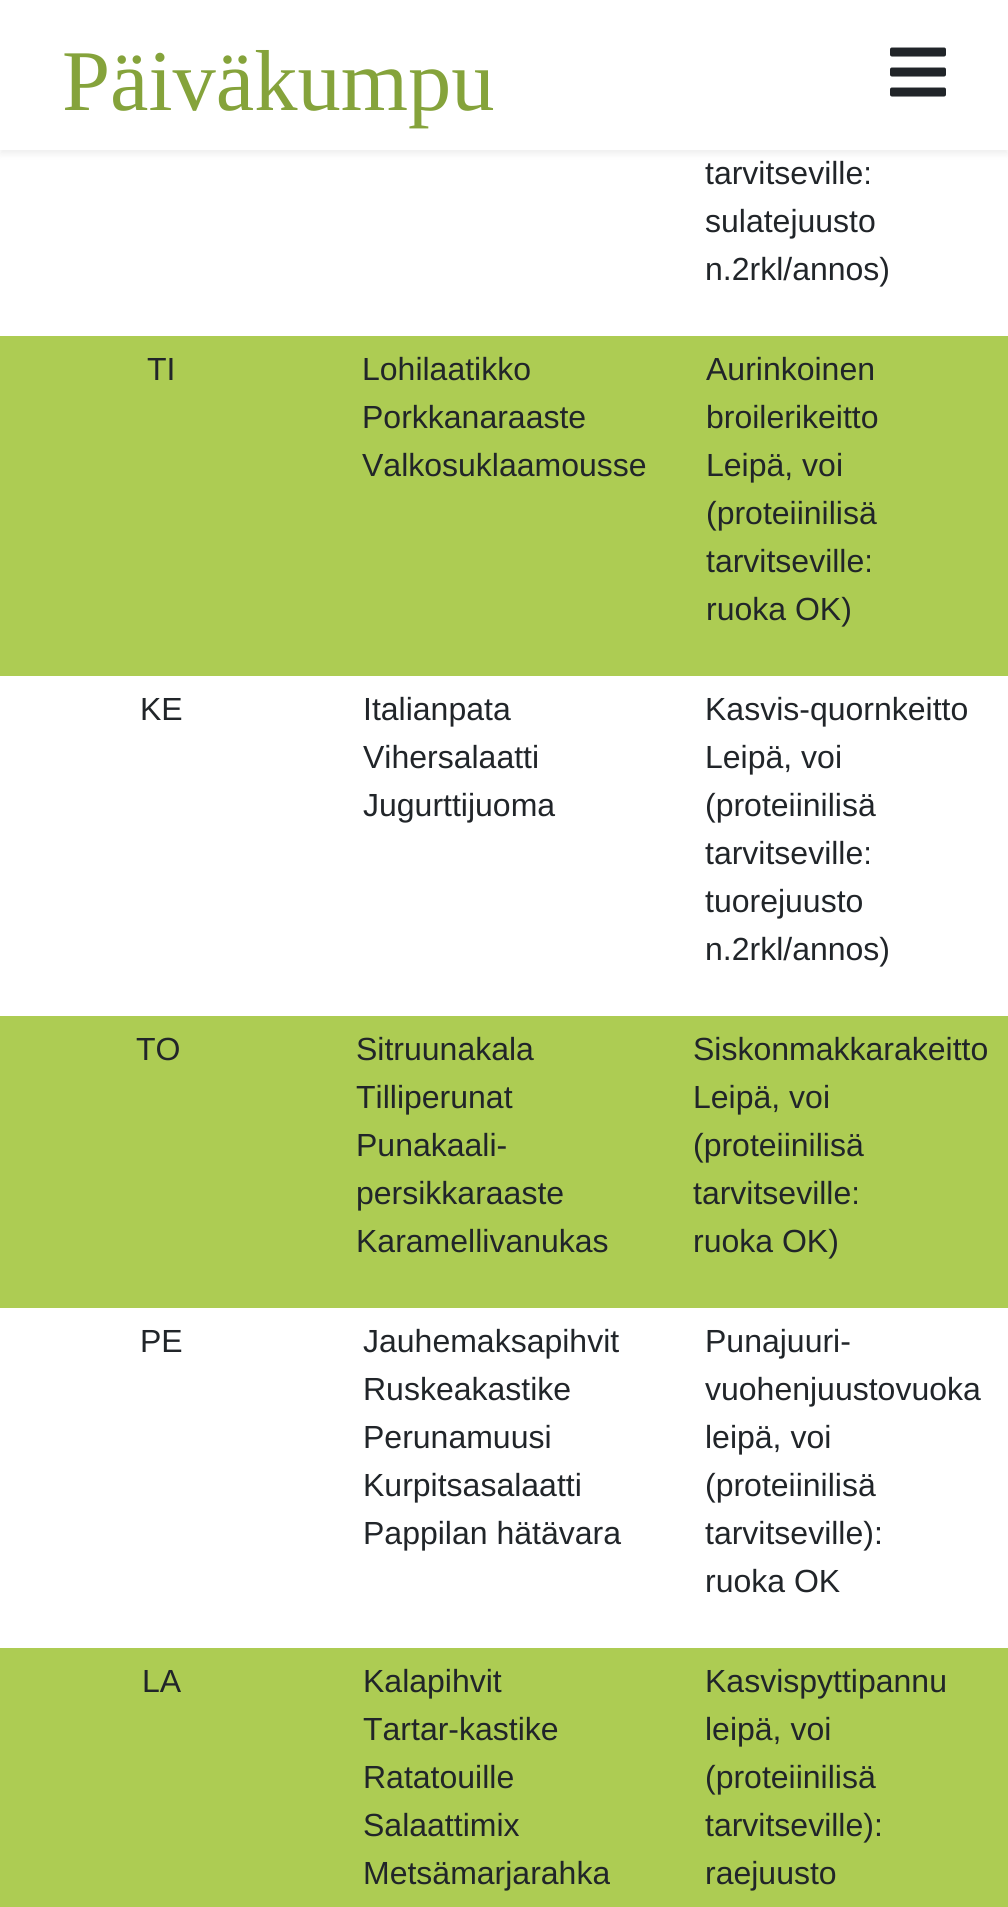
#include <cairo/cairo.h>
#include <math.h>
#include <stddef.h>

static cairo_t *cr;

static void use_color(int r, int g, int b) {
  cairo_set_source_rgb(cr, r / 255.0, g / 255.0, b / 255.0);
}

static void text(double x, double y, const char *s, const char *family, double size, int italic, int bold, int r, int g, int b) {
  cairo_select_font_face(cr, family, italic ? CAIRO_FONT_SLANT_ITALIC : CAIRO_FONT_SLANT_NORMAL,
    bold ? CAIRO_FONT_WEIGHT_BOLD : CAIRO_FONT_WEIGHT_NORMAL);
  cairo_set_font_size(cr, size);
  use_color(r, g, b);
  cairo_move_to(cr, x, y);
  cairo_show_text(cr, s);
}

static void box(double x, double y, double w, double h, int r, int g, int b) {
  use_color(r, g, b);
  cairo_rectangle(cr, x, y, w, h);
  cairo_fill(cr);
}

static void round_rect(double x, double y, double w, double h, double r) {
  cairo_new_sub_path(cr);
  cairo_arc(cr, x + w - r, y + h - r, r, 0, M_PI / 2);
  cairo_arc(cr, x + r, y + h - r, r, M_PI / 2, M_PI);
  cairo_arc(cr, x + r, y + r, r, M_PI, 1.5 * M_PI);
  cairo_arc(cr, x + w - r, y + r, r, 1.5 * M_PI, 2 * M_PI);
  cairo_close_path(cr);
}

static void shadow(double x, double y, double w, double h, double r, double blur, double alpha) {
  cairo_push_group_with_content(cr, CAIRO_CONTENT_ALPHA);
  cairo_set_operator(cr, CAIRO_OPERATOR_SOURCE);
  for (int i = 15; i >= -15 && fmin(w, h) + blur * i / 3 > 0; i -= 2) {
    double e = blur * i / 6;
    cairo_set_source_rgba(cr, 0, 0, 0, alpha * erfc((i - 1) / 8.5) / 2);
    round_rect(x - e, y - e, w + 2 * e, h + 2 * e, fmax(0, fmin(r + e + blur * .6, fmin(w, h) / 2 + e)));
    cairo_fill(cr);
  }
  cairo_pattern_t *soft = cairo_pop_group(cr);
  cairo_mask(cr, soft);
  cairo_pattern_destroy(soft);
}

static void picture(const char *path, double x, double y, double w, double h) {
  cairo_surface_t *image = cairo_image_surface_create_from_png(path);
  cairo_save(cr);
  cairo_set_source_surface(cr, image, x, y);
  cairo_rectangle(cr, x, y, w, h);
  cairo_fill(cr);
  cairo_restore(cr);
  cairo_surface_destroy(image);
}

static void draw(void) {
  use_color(255, 255, 255);
  cairo_paint(cr);
  use_color(0, 0, 0);
  shadow(0, 4, 1008, 150, 0, 4, 0.07);
  box(0, 0, 1008, 150, 255, 255, 255);
  picture("img_01.png", 890, 47, 56, 50);
  box(0, 336, 1008, 340, 173, 204, 83);
  box(0, 1016, 1008, 292, 173, 204, 83);
  box(0, 1648, 1008, 259, 173, 204, 83);
  text(62, 110, "Päiväkumpu", "Liberation Serif", 86.5, 0, 0, 133, 163, 59);
  text(705, 184, "tarvitseville:", "Liberation Sans", 32, 0, 0, 33, 37, 41);
  text(705, 232, "sulatejuusto", "Liberation Sans", 32, 0, 0, 33, 37, 41);
  text(705, 280, "n.2rkl/annos)", "Liberation Sans", 32, 0, 0, 33, 37, 41);
  text(147, 380, "TI", "Liberation Sans", 32, 0, 0, 33, 37, 41);
  text(362, 380, "Lohilaatikko", "Liberation Sans", 32, 0, 0, 33, 37, 41);
  text(362, 428, "Porkkanaraaste", "Liberation Sans", 32, 0, 0, 33, 37, 41);
  text(362, 476, "Valkosuklaamousse", "Liberation Sans", 32, 0, 0, 33, 37, 41);
  text(706, 380, "Aurinkoinen", "Liberation Sans", 32, 0, 0, 33, 37, 41);
  text(706, 428, "broilerikeitto", "Liberation Sans", 32, 0, 0, 33, 37, 41);
  text(706, 476, "Leipä, voi", "Liberation Sans", 32, 0, 0, 33, 37, 41);
  text(706, 524, "(proteiinilisä", "Liberation Sans", 32, 0, 0, 33, 37, 41);
  text(706, 572, "tarvitseville:", "Liberation Sans", 32, 0, 0, 33, 37, 41);
  text(706, 620, "ruoka OK)", "Liberation Sans", 32, 0, 0, 33, 37, 41);
  text(140, 720, "KE", "Liberation Sans", 32, 0, 0, 33, 37, 41);
  text(363, 720, "Italianpata", "Liberation Sans", 32, 0, 0, 33, 37, 41);
  text(363, 768, "Vihersalaatti", "Liberation Sans", 32, 0, 0, 33, 37, 41);
  text(363, 816, "Jugurttijuoma", "Liberation Sans", 32, 0, 0, 33, 37, 41);
  text(705, 720, "Kasvis-quornkeitto", "Liberation Sans", 32, 0, 0, 33, 37, 41);
  text(705, 768, "Leipä, voi", "Liberation Sans", 32, 0, 0, 33, 37, 41);
  text(705, 816, "(proteiinilisä", "Liberation Sans", 32, 0, 0, 33, 37, 41);
  text(705, 864, "tarvitseville:", "Liberation Sans", 32, 0, 0, 33, 37, 41);
  text(705, 912, "tuorejuusto", "Liberation Sans", 32, 0, 0, 33, 37, 41);
  text(705, 960, "n.2rkl/annos)", "Liberation Sans", 32, 0, 0, 33, 37, 41);
  text(136, 1060, "TO", "Liberation Sans", 32, 0, 0, 33, 37, 41);
  text(356, 1060, "Sitruunakala", "Liberation Sans", 32, 0, 0, 33, 37, 41);
  text(356, 1108, "Tilliperunat", "Liberation Sans", 32, 0, 0, 33, 37, 41);
  text(356, 1156, "Punakaali-", "Liberation Sans", 32, 0, 0, 33, 37, 41);
  text(356, 1204, "persikkaraaste", "Liberation Sans", 32, 0, 0, 33, 37, 41);
  text(356, 1252, "Karamellivanukas", "Liberation Sans", 32, 0, 0, 33, 37, 41);
  text(693, 1060, "Siskonmakkarakeitto", "Liberation Sans", 32, 0, 0, 33, 37, 41);
  text(693, 1108, "Leipä, voi", "Liberation Sans", 32, 0, 0, 33, 37, 41);
  text(693, 1156, "(proteiinilisä", "Liberation Sans", 32, 0, 0, 33, 37, 41);
  text(693, 1204, "tarvitseville:", "Liberation Sans", 32, 0, 0, 33, 37, 41);
  text(693, 1252, "ruoka OK)", "Liberation Sans", 32, 0, 0, 33, 37, 41);
  text(140, 1352, "PE", "Liberation Sans", 32, 0, 0, 33, 37, 41);
  text(363, 1352, "Jauhemaksapihvit", "Liberation Sans", 32, 0, 0, 33, 37, 41);
  text(363, 1400, "Ruskeakastike", "Liberation Sans", 32, 0, 0, 33, 37, 41);
  text(363, 1448, "Perunamuusi", "Liberation Sans", 32, 0, 0, 33, 37, 41);
  text(363, 1496, "Kurpitsasalaatti", "Liberation Sans", 32, 0, 0, 33, 37, 41);
  text(363, 1544, "Pappilan hätävara", "Liberation Sans", 32, 0, 0, 33, 37, 41);
  text(705, 1352, "Punajuuri-", "Liberation Sans", 32, 0, 0, 33, 37, 41);
  text(705, 1400, "vuohenjuustovuoka", "Liberation Sans", 32, 0, 0, 33, 37, 41);
  text(705, 1448, "leipä, voi", "Liberation Sans", 32, 0, 0, 33, 37, 41);
  text(705, 1496, "(proteiinilisä", "Liberation Sans", 32, 0, 0, 33, 37, 41);
  text(705, 1544, "tarvitseville):", "Liberation Sans", 32, 0, 0, 33, 37, 41);
  text(705, 1592, "ruoka OK", "Liberation Sans", 32, 0, 0, 33, 37, 41);
  text(142, 1692, "LA", "Liberation Sans", 32, 0, 0, 33, 37, 41);
  text(363, 1692, "Kalapihvit", "Liberation Sans", 32, 0, 0, 33, 37, 41);
  text(363, 1740, "Tartar-kastike", "Liberation Sans", 32, 0, 0, 33, 37, 41);
  text(363, 1788, "Ratatouille", "Liberation Sans", 32, 0, 0, 33, 37, 41);
  text(363, 1836, "Salaattimix", "Liberation Sans", 32, 0, 0, 33, 37, 41);
  text(363, 1884, "Metsämarjarahka", "Liberation Sans", 32, 0, 0, 33, 37, 41);
  text(705, 1692, "Kasvispyttipannu", "Liberation Sans", 32, 0, 0, 33, 37, 41);
  text(705, 1740, "leipä, voi", "Liberation Sans", 32, 0, 0, 33, 37, 41);
  text(705, 1788, "(proteiinilisä", "Liberation Sans", 32, 0, 0, 33, 37, 41);
  text(705, 1836, "tarvitseville):", "Liberation Sans", 32, 0, 0, 33, 37, 41);
  text(705, 1884, "raejuusto", "Liberation Sans", 32, 0, 0, 33, 37, 41);
}

int main(void) {
  cairo_surface_t *surface = cairo_image_surface_create(CAIRO_FORMAT_RGB24, 1008, 1907);
  cr = cairo_create(surface);
  cairo_font_options_t *options = cairo_font_options_create();
  cairo_font_options_set_hint_metrics(options, CAIRO_HINT_METRICS_OFF);
  cairo_font_options_set_hint_style(options, CAIRO_HINT_STYLE_NONE);
  cairo_set_font_options(cr, options);
  cairo_set_miter_limit(cr, 4);
  draw();
  cairo_surface_write_to_png(surface, "out.png");
  cairo_font_options_destroy(options);
  cairo_destroy(cr);
  cairo_surface_destroy(surface);
  return 0;
}
